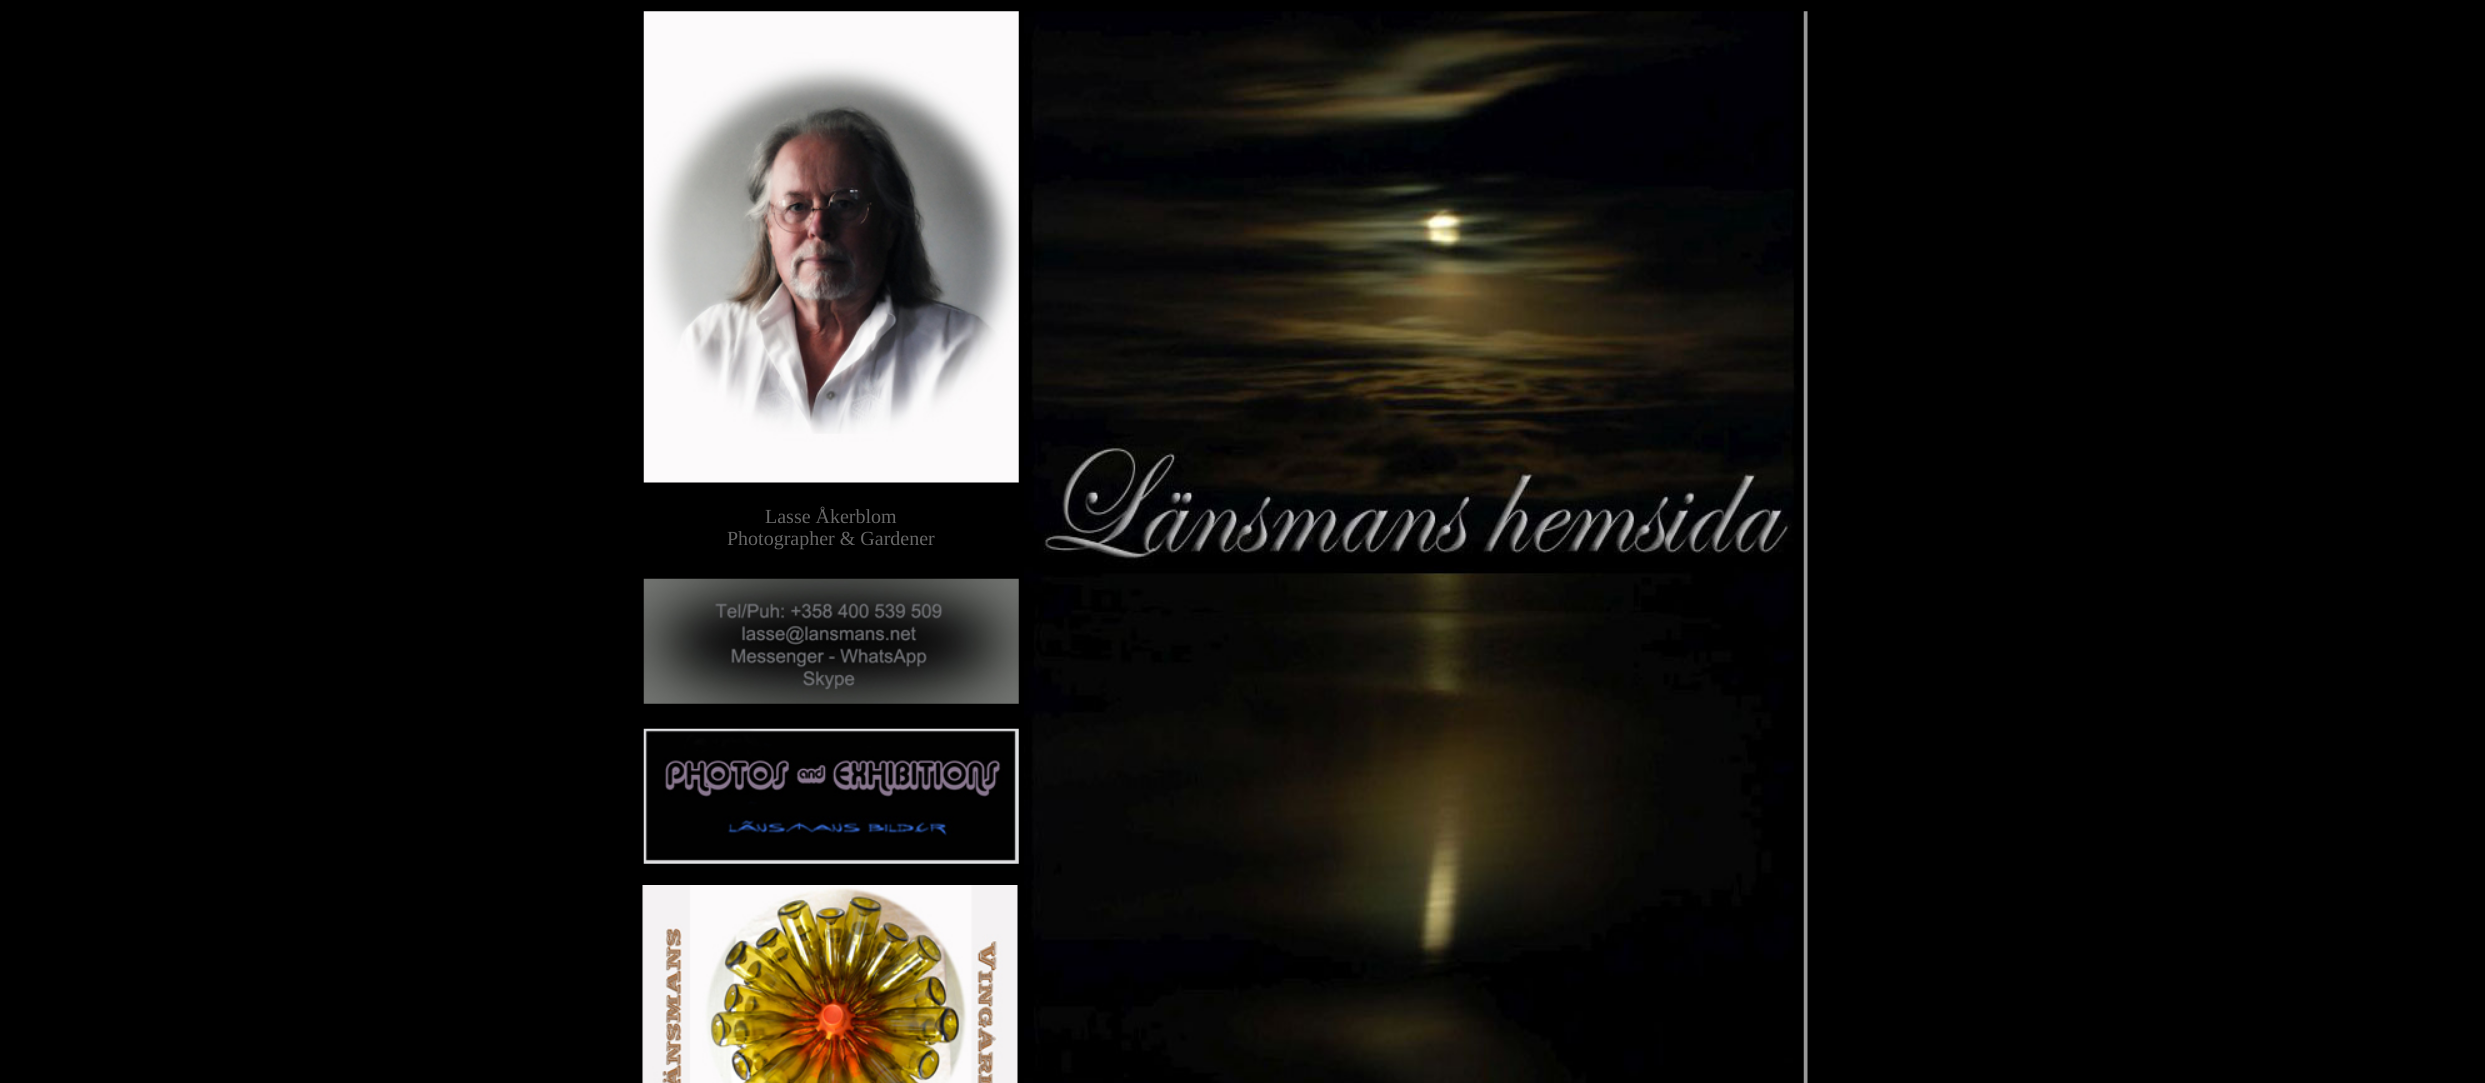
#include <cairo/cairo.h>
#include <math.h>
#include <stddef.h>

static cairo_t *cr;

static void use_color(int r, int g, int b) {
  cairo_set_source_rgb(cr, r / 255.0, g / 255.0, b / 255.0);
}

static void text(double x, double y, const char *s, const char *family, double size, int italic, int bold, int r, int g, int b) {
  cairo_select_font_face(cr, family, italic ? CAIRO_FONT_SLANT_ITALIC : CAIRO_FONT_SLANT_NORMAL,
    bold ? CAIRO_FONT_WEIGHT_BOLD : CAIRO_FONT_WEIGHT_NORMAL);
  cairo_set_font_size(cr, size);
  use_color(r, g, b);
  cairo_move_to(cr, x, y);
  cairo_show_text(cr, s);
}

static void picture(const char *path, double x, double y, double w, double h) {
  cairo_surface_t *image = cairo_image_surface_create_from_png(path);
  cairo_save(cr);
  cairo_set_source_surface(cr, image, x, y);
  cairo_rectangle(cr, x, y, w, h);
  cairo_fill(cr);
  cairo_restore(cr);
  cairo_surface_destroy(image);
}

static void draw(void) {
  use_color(0, 0, 0);
  cairo_paint(cr);
  picture("img_01.png", 643, 11, 376, 472);
  picture("img_02.png", 1024, 11, 784, 1072);
  picture("img_03.png", 643, 578, 376, 126);
  picture("img_04.png", 643, 728, 376, 136);
  picture("img_05.png", 642, 885, 376, 198);
  text(765, 523, "Lasse Åkerblom", "Liberation Serif", 20, 0, 0, 102, 102, 102);
  text(727, 545, "Photographer & Gardener", "Liberation Serif", 20, 0, 0, 102, 102, 102);
}

int main(void) {
  cairo_surface_t *surface = cairo_image_surface_create(CAIRO_FORMAT_RGB24, 2485, 1083);
  cr = cairo_create(surface);
  cairo_font_options_t *options = cairo_font_options_create();
  cairo_font_options_set_hint_metrics(options, CAIRO_HINT_METRICS_OFF);
  cairo_font_options_set_hint_style(options, CAIRO_HINT_STYLE_NONE);
  cairo_set_font_options(cr, options);
  cairo_set_miter_limit(cr, 4);
  draw();
  cairo_surface_write_to_png(surface, "out.png");
  cairo_font_options_destroy(options);
  cairo_destroy(cr);
  cairo_surface_destroy(surface);
  return 0;
}
